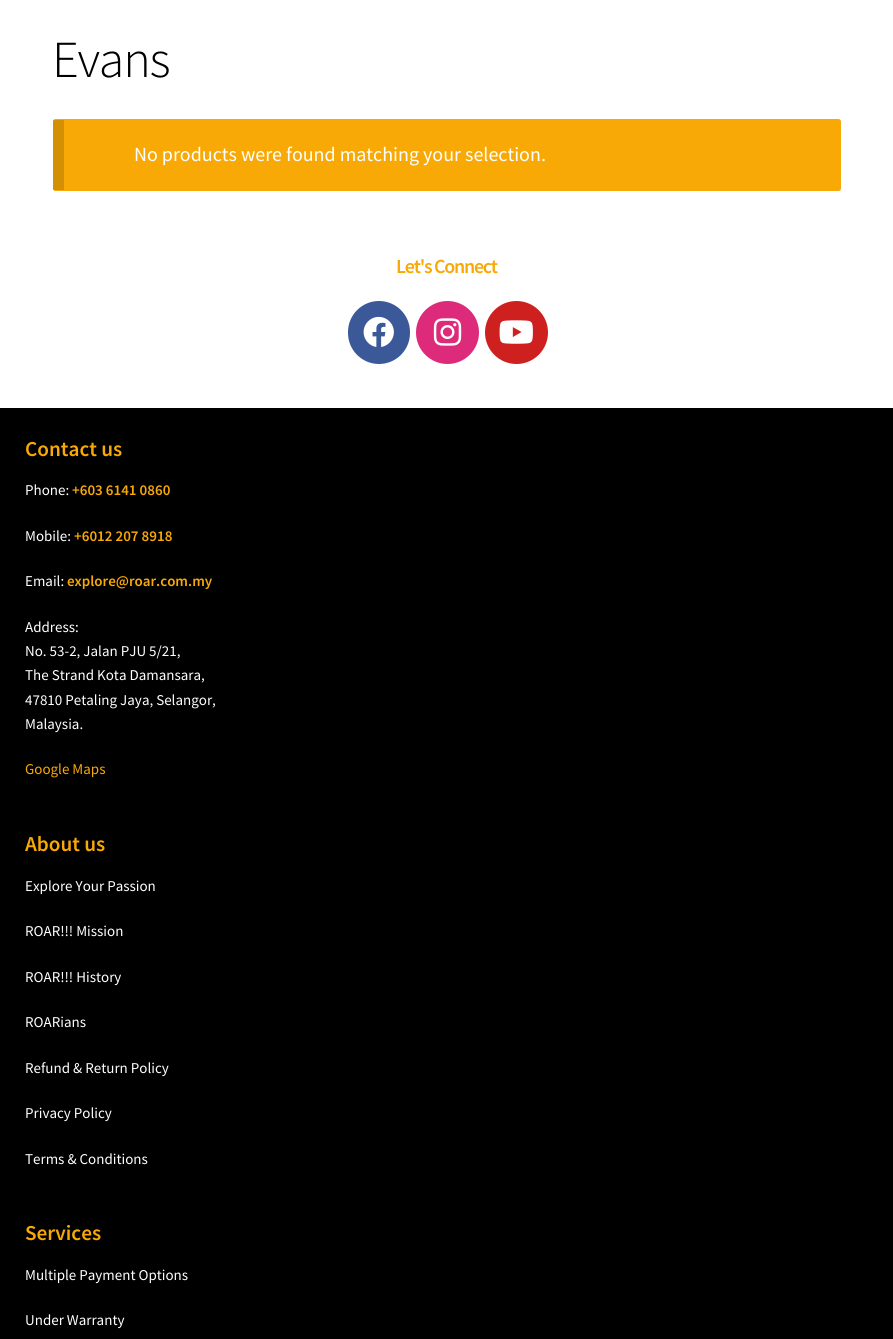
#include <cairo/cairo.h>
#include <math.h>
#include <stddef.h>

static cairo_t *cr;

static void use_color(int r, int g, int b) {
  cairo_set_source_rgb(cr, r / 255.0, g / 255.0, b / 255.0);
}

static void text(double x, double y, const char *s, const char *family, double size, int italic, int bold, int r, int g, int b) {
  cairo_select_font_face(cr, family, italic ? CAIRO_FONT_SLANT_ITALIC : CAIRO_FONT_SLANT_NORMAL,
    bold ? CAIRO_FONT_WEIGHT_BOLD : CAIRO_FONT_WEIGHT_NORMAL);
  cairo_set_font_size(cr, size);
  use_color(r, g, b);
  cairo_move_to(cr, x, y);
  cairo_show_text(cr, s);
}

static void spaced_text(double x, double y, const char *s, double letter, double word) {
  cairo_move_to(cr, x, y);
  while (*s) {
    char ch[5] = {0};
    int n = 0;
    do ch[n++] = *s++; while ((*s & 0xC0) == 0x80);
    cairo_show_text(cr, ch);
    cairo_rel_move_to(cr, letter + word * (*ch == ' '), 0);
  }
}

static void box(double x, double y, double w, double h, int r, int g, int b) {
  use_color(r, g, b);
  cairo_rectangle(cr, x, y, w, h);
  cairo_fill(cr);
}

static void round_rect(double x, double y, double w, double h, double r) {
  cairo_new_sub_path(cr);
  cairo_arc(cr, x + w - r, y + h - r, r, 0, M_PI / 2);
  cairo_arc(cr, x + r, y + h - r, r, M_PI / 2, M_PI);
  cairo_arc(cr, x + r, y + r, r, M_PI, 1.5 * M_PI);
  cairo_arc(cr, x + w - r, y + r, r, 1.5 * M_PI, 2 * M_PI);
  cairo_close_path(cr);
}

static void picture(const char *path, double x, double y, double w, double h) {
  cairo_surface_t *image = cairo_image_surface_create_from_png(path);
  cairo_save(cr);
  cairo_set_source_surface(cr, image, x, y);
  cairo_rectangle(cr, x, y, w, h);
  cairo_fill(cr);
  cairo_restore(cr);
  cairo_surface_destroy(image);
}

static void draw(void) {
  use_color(255, 255, 255);
  cairo_paint(cr);
  use_color(249, 169, 5);
  round_rect(53, 119, 788, 72, 2.5);
  cairo_fill(cr);
  cairo_set_source_rgba(cr, 0, 0, 0, 0.15);
  cairo_rectangle(cr, 53, 120, 11, 70);
  cairo_fill(cr);
  use_color(59, 89, 152);
  round_rect(348, 301, 62, 63, 31);
  cairo_fill(cr);
  picture("img_01.png", 363, 316, 31, 31);
  use_color(221, 42, 123);
  cairo_arc(cr, 447.5, 332.5, 31.5, 0, 2 * M_PI);
  cairo_fill(cr);
  picture("img_02.png", 433, 318, 29, 28);
  use_color(205, 32, 31);
  cairo_arc(cr, 516.5, 332.5, 31.5, 0, 2 * M_PI);
  cairo_fill(cr);
  picture("img_03.png", 499, 320, 34, 24);
  box(0, 408, 893, 931, 0, 0, 0);
  cairo_select_font_face(cr, "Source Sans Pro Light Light", CAIRO_FONT_SLANT_NORMAL, CAIRO_FONT_WEIGHT_NORMAL);
  cairo_set_font_size(cr, 52);
  spaced_text(52, 77, "Evans", -1.25, 0);
  text(134, 161, "No products were found matching your selection.", "Source Sans Pro", 20, 0, 0, 255, 255, 255);
  cairo_select_font_face(cr, "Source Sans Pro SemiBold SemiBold", CAIRO_FONT_SLANT_NORMAL, CAIRO_FONT_WEIGHT_NORMAL);
  use_color(249, 169, 5);
  spaced_text(396, 273, "Let's Connect", -1.25, 0);
  text(25, 456, "Contact us", "Source Sans Pro SemiBold SemiBold", 21.25, 0, 0, 249, 169, 5);
  text(25, 495, "Phone:", "Source Sans Pro", 15, 0, 0, 255, 255, 255);
  text(72, 495, "+603 6141 0860", "Source Sans Pro SemiBold SemiBold", 15, 0, 0, 249, 169, 5);
  text(25, 541, "Mobile:", "Source Sans Pro", 15, 0, 0, 255, 255, 255);
  text(74, 541, "+6012 207 8918", "Source Sans Pro SemiBold SemiBold", 15, 0, 0, 249, 169, 5);
  text(25, 586, "Email:", "Source Sans Pro", 15, 0, 0, 255, 255, 255);
  text(67, 586, "explore@roar.com.my", "Source Sans Pro SemiBold SemiBold", 15, 0, 0, 249, 169, 5);
  text(25, 632, "Address:", "Source Sans Pro", 15, 0, 0, 255, 255, 255);
  text(25, 656, "No. 53-2, Jalan PJU 5/21,", "Source Sans Pro", 15, 0, 0, 255, 255, 255);
  text(25, 680, "The Strand Kota Damansara,", "Source Sans Pro", 15, 0, 0, 255, 255, 255);
  text(25, 705, "47810 Petaling Jaya, Selangor,", "Source Sans Pro", 15, 0, 0, 255, 255, 255);
  text(25, 729, "Malaysia.", "Source Sans Pro", 15, 0, 0, 255, 255, 255);
  text(25, 774, "Google Maps", "Source Sans Pro", 15, 0, 0, 249, 169, 5);
  text(25, 851, "About us", "Source Sans Pro SemiBold SemiBold", 21.25, 0, 0, 249, 169, 5);
  text(25, 891, "Explore Your Passion", "Source Sans Pro", 15, 0, 0, 255, 255, 255);
  text(25, 936, "ROAR!!! Mission", "Source Sans Pro", 15, 0, 0, 255, 255, 255);
  text(25, 982, "ROAR!!! History", "Source Sans Pro", 15, 0, 0, 255, 255, 255);
  text(25, 1027, "ROARians", "Source Sans Pro", 15, 0, 0, 255, 255, 255);
  text(25, 1073, "Refund & Return Policy", "Source Sans Pro", 15, 0, 0, 255, 255, 255);
  text(25, 1118, "Privacy Policy", "Source Sans Pro", 15, 0, 0, 255, 255, 255);
  text(25, 1164, "Terms & Conditions", "Source Sans Pro", 15, 0, 0, 255, 255, 255);
  text(25, 1240, "Services", "Source Sans Pro SemiBold SemiBold", 21.25, 0, 0, 249, 169, 5);
  text(25, 1280, "Multiple Payment Options", "Source Sans Pro", 15, 0, 0, 255, 255, 255);
  text(25, 1325, "Under Warranty", "Source Sans Pro", 15, 0, 0, 255, 255, 255);
}

int main(void) {
  cairo_surface_t *surface = cairo_image_surface_create(CAIRO_FORMAT_RGB24, 893, 1339);
  cr = cairo_create(surface);
  cairo_font_options_t *options = cairo_font_options_create();
  cairo_font_options_set_hint_metrics(options, CAIRO_HINT_METRICS_OFF);
  cairo_font_options_set_hint_style(options, CAIRO_HINT_STYLE_NONE);
  cairo_set_font_options(cr, options);
  cairo_set_miter_limit(cr, 4);
  draw();
  cairo_surface_write_to_png(surface, "out.png");
  cairo_font_options_destroy(options);
  cairo_destroy(cr);
  cairo_surface_destroy(surface);
  return 0;
}
